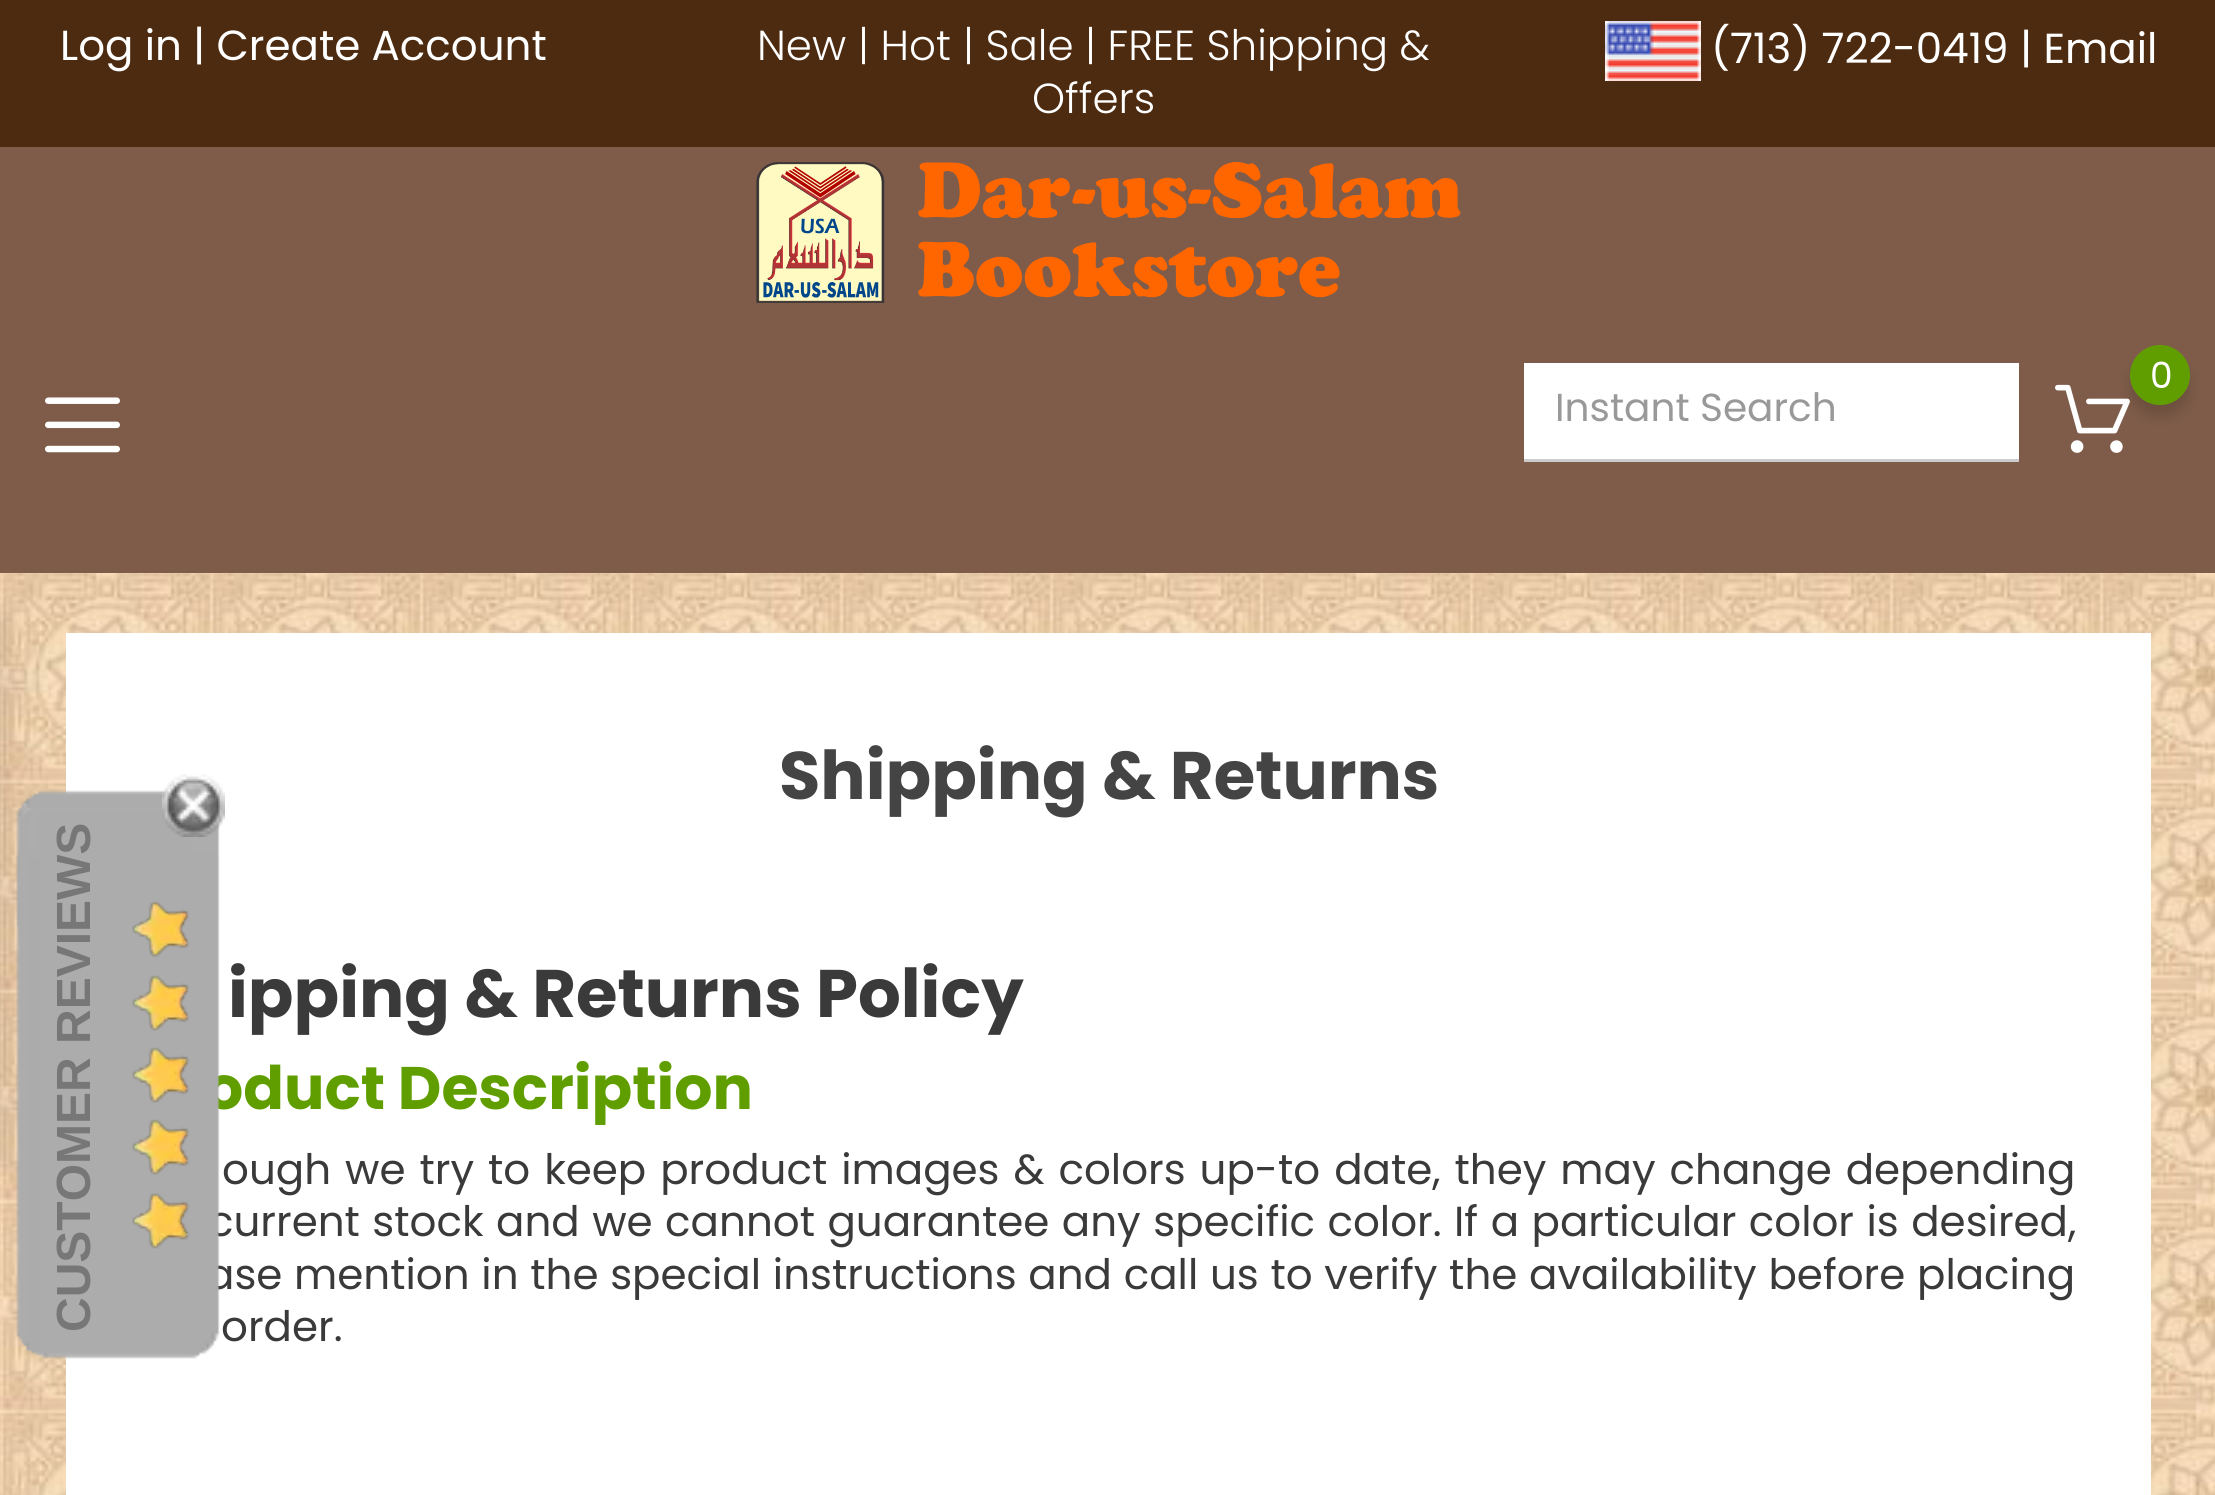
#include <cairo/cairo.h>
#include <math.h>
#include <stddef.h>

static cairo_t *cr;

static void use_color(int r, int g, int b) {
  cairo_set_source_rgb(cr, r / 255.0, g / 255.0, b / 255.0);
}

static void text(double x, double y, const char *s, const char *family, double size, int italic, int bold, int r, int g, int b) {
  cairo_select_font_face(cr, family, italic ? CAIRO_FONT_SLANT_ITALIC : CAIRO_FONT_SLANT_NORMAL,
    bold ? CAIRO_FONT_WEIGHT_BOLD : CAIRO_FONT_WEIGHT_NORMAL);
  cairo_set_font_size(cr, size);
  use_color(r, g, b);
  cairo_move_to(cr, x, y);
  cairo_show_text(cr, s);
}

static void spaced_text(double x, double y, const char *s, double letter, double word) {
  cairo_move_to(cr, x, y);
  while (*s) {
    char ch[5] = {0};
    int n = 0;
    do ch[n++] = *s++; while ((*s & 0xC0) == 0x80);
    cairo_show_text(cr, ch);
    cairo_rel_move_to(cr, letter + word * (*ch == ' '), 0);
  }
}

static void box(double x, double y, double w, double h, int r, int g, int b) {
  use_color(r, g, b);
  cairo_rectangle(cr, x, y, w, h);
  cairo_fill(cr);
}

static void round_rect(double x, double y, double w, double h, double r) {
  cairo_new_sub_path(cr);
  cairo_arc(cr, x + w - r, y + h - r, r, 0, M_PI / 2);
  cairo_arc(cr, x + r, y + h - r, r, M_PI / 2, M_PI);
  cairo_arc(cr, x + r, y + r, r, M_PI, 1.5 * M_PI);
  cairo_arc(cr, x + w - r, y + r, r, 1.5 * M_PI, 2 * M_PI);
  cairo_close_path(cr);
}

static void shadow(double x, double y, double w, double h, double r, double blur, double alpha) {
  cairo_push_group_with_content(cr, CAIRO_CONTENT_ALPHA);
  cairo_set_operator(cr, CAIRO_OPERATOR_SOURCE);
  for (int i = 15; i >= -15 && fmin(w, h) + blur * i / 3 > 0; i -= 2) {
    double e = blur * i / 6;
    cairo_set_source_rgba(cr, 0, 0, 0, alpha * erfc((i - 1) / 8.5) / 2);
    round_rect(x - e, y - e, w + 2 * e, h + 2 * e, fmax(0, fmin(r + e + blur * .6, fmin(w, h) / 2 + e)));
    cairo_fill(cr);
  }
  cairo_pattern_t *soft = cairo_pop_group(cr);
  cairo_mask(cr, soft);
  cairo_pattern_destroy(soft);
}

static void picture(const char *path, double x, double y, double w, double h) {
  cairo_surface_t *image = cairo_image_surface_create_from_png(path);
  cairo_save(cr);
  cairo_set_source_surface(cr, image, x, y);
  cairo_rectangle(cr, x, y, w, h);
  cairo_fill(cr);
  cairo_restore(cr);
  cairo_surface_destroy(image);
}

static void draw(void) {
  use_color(76, 43, 17);
  cairo_paint(cr);
  picture("img_01.png", 1605, 21, 96, 60);
  box(0, 147, 2215, 426, 126, 92, 73);
  picture("img_02.png", 756, 162, 705, 141);
  picture("img_03.png", 45, 397, 75, 56);
  picture("img_04.png", 2055, 384, 75, 69);
  use_color(0, 0, 0);
  shadow(2130, 357, 60, 60, 30, 6, 0.14);
  use_color(96, 158, 0);
  cairo_arc(cr, 2160, 375, 30, 0, 2 * M_PI);
  cairo_fill(cr);
  box(1524, 363, 495, 96, 255, 255, 255);
  box(1524, 459, 495, 3, 204, 204, 204);
  picture("img_08.png", 0, 573, 2215, 922);
  use_color(0, 0, 0);
  shadow(-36, 618, 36, 546, 0, 12, 0.16);
  box(66, 633, 2085, 862, 255, 255, 255);
  text(60, 60, "Log in", "Poppins", 42, 0, 0, 255, 255, 255);
  text(193, 60, "| Create Account", "Poppins", 42, 0, 0, 255, 255, 255);
  text(757, 60, "New", "Poppins Light", 42, 0, 0, 255, 255, 255);
  text(858, 60, "| Hot", "Poppins Light", 42, 0, 0, 255, 255, 255);
  text(963, 60, "| Sale", "Poppins Light", 42, 0, 0, 255, 255, 255);
  text(1085, 60, "| FREE Shipping &", "Poppins Light", 42, 0, 0, 255, 255, 255);
  text(1032, 113, "Offers", "Poppins Light", 42, 0, 0, 255, 255, 255);
  text(1711, 63, "(713) 722-0419", "Poppins", 42, 0, 0, 255, 255, 255);
  text(2020, 63, "| Email", "Poppins", 42, 0, 0, 255, 255, 255);
  text(2150, 388, "0", "Poppins", 36, 0, 0, 255, 255, 255);
  text(1555, 421, "Instant Search", "Poppins", 39, 0, 0, 153, 153, 153);
  text(779, 799, "Shipping & Returns", "Poppins", 67.25, 0, 1, 68, 68, 68);
  text(228, 1017, "ipping & Returns Policy", "Poppins", 67.25, 0, 1, 58, 58, 58);
  text(205, 1109, "oduct Description", "Poppins", 60, 0, 1, 96, 158, 0);
  cairo_select_font_face(cr, "Poppins", CAIRO_FONT_SLANT_NORMAL, CAIRO_FONT_WEIGHT_NORMAL);
  cairo_set_font_size(cr, 42);
  use_color(58, 58, 58);
  spaced_text(222, 1184, "ough we try to keep product images & colors up-to date, they may change depending", 0, 2.75);
  spaced_text(208, 1236, "current stock and we cannot guarantee any specific color. If a particular color is desired,", 0, 1.25);
  spaced_text(206, 1289, "ase mention in the special instructions and call us to verify the availability before placing", 0, 0.5);
  picture("img_06.png", 16, 790, 204, 569);
  picture("img_07.png", 132, 901, 58, 348);
  cairo_save(cr);
  cairo_translate(cr, 90, 1332);
  cairo_rotate(cr, -90 * M_PI / 180);
  text(0, 0, "CUSTOMER REVIEWS", "Liberation Sans", 48, 0, 1, 119, 119, 119);
  cairo_restore(cr);
  picture("img_05.png", 162, 774, 63, 63);
  text(221, 1341, "order.", "Poppins", 42, 0, 0, 58, 58, 58);
}

int main(void) {
  cairo_surface_t *surface = cairo_image_surface_create(CAIRO_FORMAT_RGB24, 2215, 1495);
  cr = cairo_create(surface);
  cairo_font_options_t *options = cairo_font_options_create();
  cairo_font_options_set_hint_metrics(options, CAIRO_HINT_METRICS_OFF);
  cairo_font_options_set_hint_style(options, CAIRO_HINT_STYLE_NONE);
  cairo_set_font_options(cr, options);
  cairo_set_miter_limit(cr, 4);
  draw();
  cairo_surface_write_to_png(surface, "out.png");
  cairo_font_options_destroy(options);
  cairo_destroy(cr);
  cairo_surface_destroy(surface);
  return 0;
}
